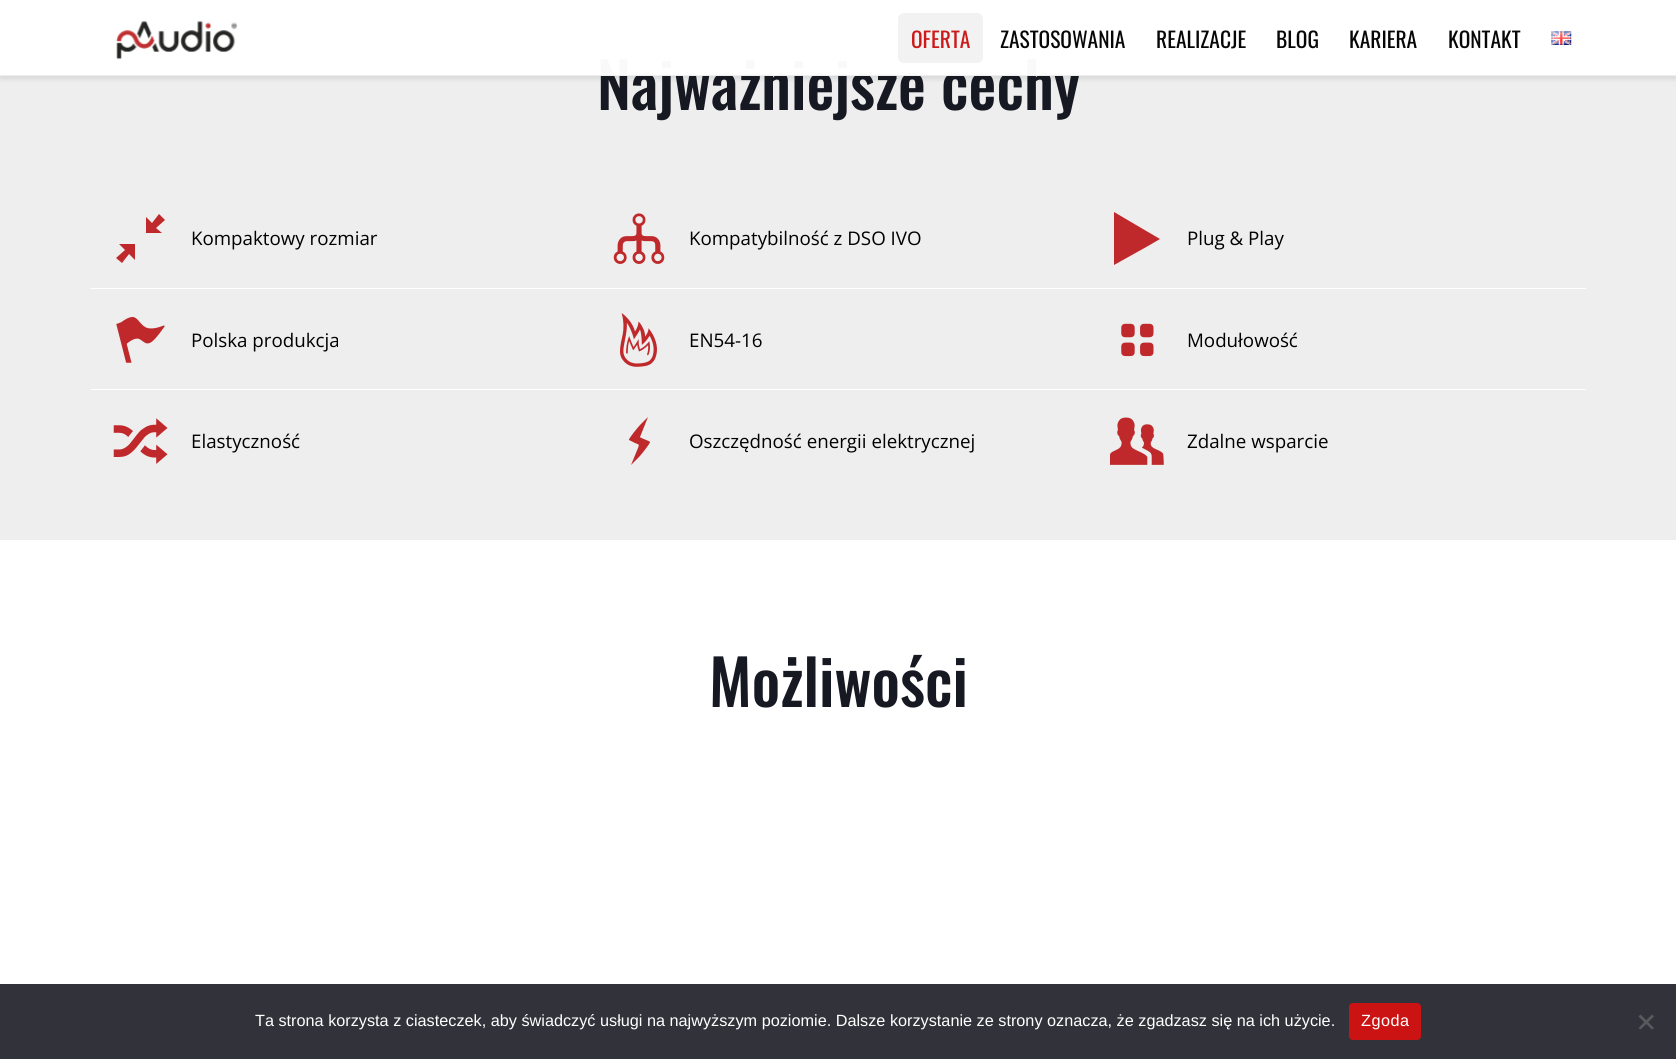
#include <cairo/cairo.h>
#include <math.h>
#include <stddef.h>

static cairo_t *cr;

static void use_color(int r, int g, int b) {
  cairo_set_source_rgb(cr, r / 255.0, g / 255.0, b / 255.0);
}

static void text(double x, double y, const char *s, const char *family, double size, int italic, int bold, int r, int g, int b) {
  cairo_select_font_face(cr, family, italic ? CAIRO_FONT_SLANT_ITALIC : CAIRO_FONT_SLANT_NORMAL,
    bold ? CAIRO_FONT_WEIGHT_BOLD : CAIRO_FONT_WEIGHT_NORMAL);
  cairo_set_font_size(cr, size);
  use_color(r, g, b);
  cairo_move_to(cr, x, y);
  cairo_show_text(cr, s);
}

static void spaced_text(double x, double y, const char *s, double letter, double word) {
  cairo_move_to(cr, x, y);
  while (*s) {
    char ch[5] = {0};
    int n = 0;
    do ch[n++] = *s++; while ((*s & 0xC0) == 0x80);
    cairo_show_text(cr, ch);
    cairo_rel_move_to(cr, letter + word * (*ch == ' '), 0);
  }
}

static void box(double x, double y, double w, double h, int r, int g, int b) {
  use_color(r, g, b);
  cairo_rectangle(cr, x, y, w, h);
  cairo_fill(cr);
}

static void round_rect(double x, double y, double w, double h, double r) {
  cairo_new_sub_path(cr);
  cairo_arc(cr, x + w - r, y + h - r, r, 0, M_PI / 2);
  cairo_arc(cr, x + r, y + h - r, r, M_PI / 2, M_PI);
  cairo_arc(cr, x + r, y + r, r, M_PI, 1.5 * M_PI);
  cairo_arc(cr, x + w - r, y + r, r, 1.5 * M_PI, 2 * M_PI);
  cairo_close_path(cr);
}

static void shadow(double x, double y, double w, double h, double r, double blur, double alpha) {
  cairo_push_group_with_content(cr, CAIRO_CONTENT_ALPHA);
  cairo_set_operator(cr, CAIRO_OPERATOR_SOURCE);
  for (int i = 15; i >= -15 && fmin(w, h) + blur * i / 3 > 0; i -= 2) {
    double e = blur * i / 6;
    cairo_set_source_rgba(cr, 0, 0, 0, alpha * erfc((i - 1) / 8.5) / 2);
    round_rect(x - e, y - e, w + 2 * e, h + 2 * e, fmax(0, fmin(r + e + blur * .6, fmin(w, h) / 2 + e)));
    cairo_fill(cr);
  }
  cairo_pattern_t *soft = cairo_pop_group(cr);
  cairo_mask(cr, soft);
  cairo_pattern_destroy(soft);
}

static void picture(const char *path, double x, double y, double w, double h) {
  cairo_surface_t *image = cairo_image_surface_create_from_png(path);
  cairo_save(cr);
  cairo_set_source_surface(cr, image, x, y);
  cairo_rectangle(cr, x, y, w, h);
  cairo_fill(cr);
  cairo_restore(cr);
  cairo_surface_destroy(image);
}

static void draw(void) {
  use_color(255, 255, 255);
  cairo_paint(cr);
  box(0, 0, 1676, 540, 238, 238, 238);
  cairo_save(cr);
  cairo_rectangle(cr, 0, 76, 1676, 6);
  cairo_clip(cr);
  use_color(0, 0, 0);
  shadow(0, 3, 1676, 76, 0, 3, 0.1);
  cairo_restore(cr);
  use_color(191, 41, 43);
  cairo_new_path(cr);
  cairo_move_to(cr, 125, 250);
  cairo_line_to(cr, 119, 244);
  cairo_line_to(cr, 135, 244);
  cairo_line_to(cr, 135, 260);
  cairo_line_to(cr, 129, 254);
  cairo_line_to(cr, 122, 263);
  cairo_line_to(cr, 116, 258);
  cairo_close_path(cr);
  cairo_move_to(cr, 165, 220);
  cairo_line_to(cr, 156, 228);
  cairo_line_to(cr, 162, 233);
  cairo_line_to(cr, 146, 233);
  cairo_line_to(cr, 146, 217);
  cairo_line_to(cr, 152, 223);
  cairo_line_to(cr, 159, 214);
  cairo_close_path(cr);
  cairo_fill(cr);
  picture("img_03.png", 613, 213, 52, 51);
  cairo_new_path(cr);
  cairo_move_to(cr, 1114, 265);
  cairo_line_to(cr, 1114, 212);
  cairo_line_to(cr, 1141, 239);
  cairo_close_path(cr);
  cairo_move_to(cr, 1114, 265);
  cairo_line_to(cr, 1141, 239);
  cairo_line_to(cr, 1148, 246);
  cairo_close_path(cr);
  cairo_move_to(cr, 1114, 212);
  cairo_line_to(cr, 1148, 232);
  cairo_line_to(cr, 1141, 239);
  cairo_close_path(cr);
  cairo_move_to(cr, 1141, 239);
  cairo_line_to(cr, 1148, 232);
  cairo_line_to(cr, 1160, 239);
  cairo_line_to(cr, 1148, 246);
  cairo_close_path(cr);
  cairo_fill(cr);
  box(91, 288, 1495, 1, 255, 255, 255);
  picture("img_04.png", 116, 317, 49, 46);
  picture("img_05.png", 620, 313, 37, 54);
  picture("img_06.png", 1121, 323, 33, 34);
  box(91, 389, 1495, 1, 255, 255, 255);
  picture("img_07.png", 113, 418, 55, 46);
  use_color(191, 41, 43);
  cairo_new_path(cr);
  cairo_move_to(cr, 631, 465);
  cairo_line_to(cr, 638, 448);
  cairo_curve_to(cr, 640, 443, 638, 445, 633, 442);
  cairo_line_to(cr, 629, 440);
  cairo_curve_to(cr, 628, 439, 639, 426, 640, 425);
  cairo_line_to(cr, 648, 417);
  cairo_line_to(cr, 640, 437);
  cairo_curve_to(cr, 640, 438, 650, 441, 650, 442);
  cairo_curve_to(cr, 650, 444, 640, 456, 639, 457);
  cairo_close_path(cr);
  cairo_fill(cr);
  picture("img_08.png", 1110, 417, 54, 48);
  box(0, 984, 1676, 75, 50, 50, 58);
  use_color(203, 19, 19);
  round_rect(1349, 1003, 72, 37, 4);
  cairo_fill(cr);
  use_color(89, 89, 93);
  cairo_new_path(cr);
  cairo_move_to(cr, 1652, 1014.5);
  cairo_line_to(cr, 1654, 1016.5);
  cairo_line_to(cr, 1640.5, 1029.5);
  cairo_line_to(cr, 1638.5, 1028);
  cairo_close_path(cr);
  cairo_fill(cr);
  cairo_new_path(cr);
  cairo_move_to(cr, 1638.5, 1016.5);
  cairo_line_to(cr, 1640.5, 1014.5);
  cairo_line_to(cr, 1654, 1028);
  cairo_line_to(cr, 1652, 1029.5);
  cairo_close_path(cr);
  cairo_fill(cr);
  text(597, 110, "Najważniejsze cechy", "Oswald Medium", 62.5, 0, 0, 22, 25, 34);
  cairo_set_source_rgba(cr, 1, 1, 1, 0.97);
  cairo_rectangle(cr, 0, 0, 1676, 76);
  cairo_fill(cr);
  picture("img_02.png", 1551, 31, 21, 14);
  text(1448, 48, "KONTAKT", "Oswald", 21.5, 0, 0, 7, 7, 7);
  text(1349, 48, "KARIERA", "Oswald", 21.5, 0, 0, 7, 7, 7);
  text(1276, 48, "BLOG", "Oswald", 21.5, 0, 0, 7, 7, 7);
  text(1156, 48, "REALIZACJE", "Oswald", 21.5, 0, 0, 7, 7, 7);
  text(1000, 48, "ZASTOSOWANIA", "Oswald", 21.5, 0, 0, 7, 7, 7);
  use_color(242, 242, 242);
  round_rect(898, 13, 85, 50, 6);
  cairo_fill(cr);
  text(911, 48, "OFERTA", "Oswald", 21.5, 0, 0, 204, 26, 26);
  picture("img_01.png", 116, 20, 122, 40);
  cairo_set_source_rgba(cr, 0.933, 0.933, 0.933, 0.97);
  cairo_rectangle(cr, 0, 75, 1676, 1);
  cairo_fill(cr);
  text(191, 245, "Kompaktowy rozmiar", "Open Sans", 18.75, 0, 0, 0, 0, 0);
  text(689, 245, "Kompatybilność z DSO IVO", "Open Sans", 18.75, 0, 0, 0, 0, 0);
  text(1187, 245, "Plug & Play", "Open Sans", 18.75, 0, 0, 0, 0, 0);
  text(191, 347, "Polska produkcja", "Open Sans", 18.75, 0, 0, 0, 0, 0);
  text(689, 347, "EN54-16", "Open Sans", 18.75, 0, 0, 0, 0, 0);
  text(1187, 347, "Modułowość", "Open Sans", 18.75, 0, 0, 0, 0, 0);
  text(191, 448, "Elastyczność", "Open Sans", 18.75, 0, 0, 0, 0, 0);
  text(689, 448, "Oszczędność energii elektrycznej", "Open Sans", 18.75, 0, 0, 0, 0, 0);
  text(1187, 448, "Zdalne wsparcie", "Open Sans", 18.75, 0, 0, 0, 0, 0);
  text(709, 707, "Możliwości", "Oswald Medium", 62.5, 0, 0, 22, 25, 34);
  text(255, 1026, "Ta strona korzysta z ciasteczek, aby świadczyć usługi na najwyższym poziomie. Dalsze korzystanie ze strony oznacza, że zgadzasz się na ich użycie.", "Liberation Sans", 16.25, 0, 0, 255, 255, 255);
  spaced_text(1361, 1026, "Zgoda", 0.5, 0);
}

int main(void) {
  cairo_surface_t *surface = cairo_image_surface_create(CAIRO_FORMAT_RGB24, 1676, 1059);
  cr = cairo_create(surface);
  cairo_font_options_t *options = cairo_font_options_create();
  cairo_font_options_set_hint_metrics(options, CAIRO_HINT_METRICS_OFF);
  cairo_font_options_set_hint_style(options, CAIRO_HINT_STYLE_NONE);
  cairo_set_font_options(cr, options);
  cairo_set_miter_limit(cr, 4);
  draw();
  cairo_surface_write_to_png(surface, "out.png");
  cairo_font_options_destroy(options);
  cairo_destroy(cr);
  cairo_surface_destroy(surface);
  return 0;
}
